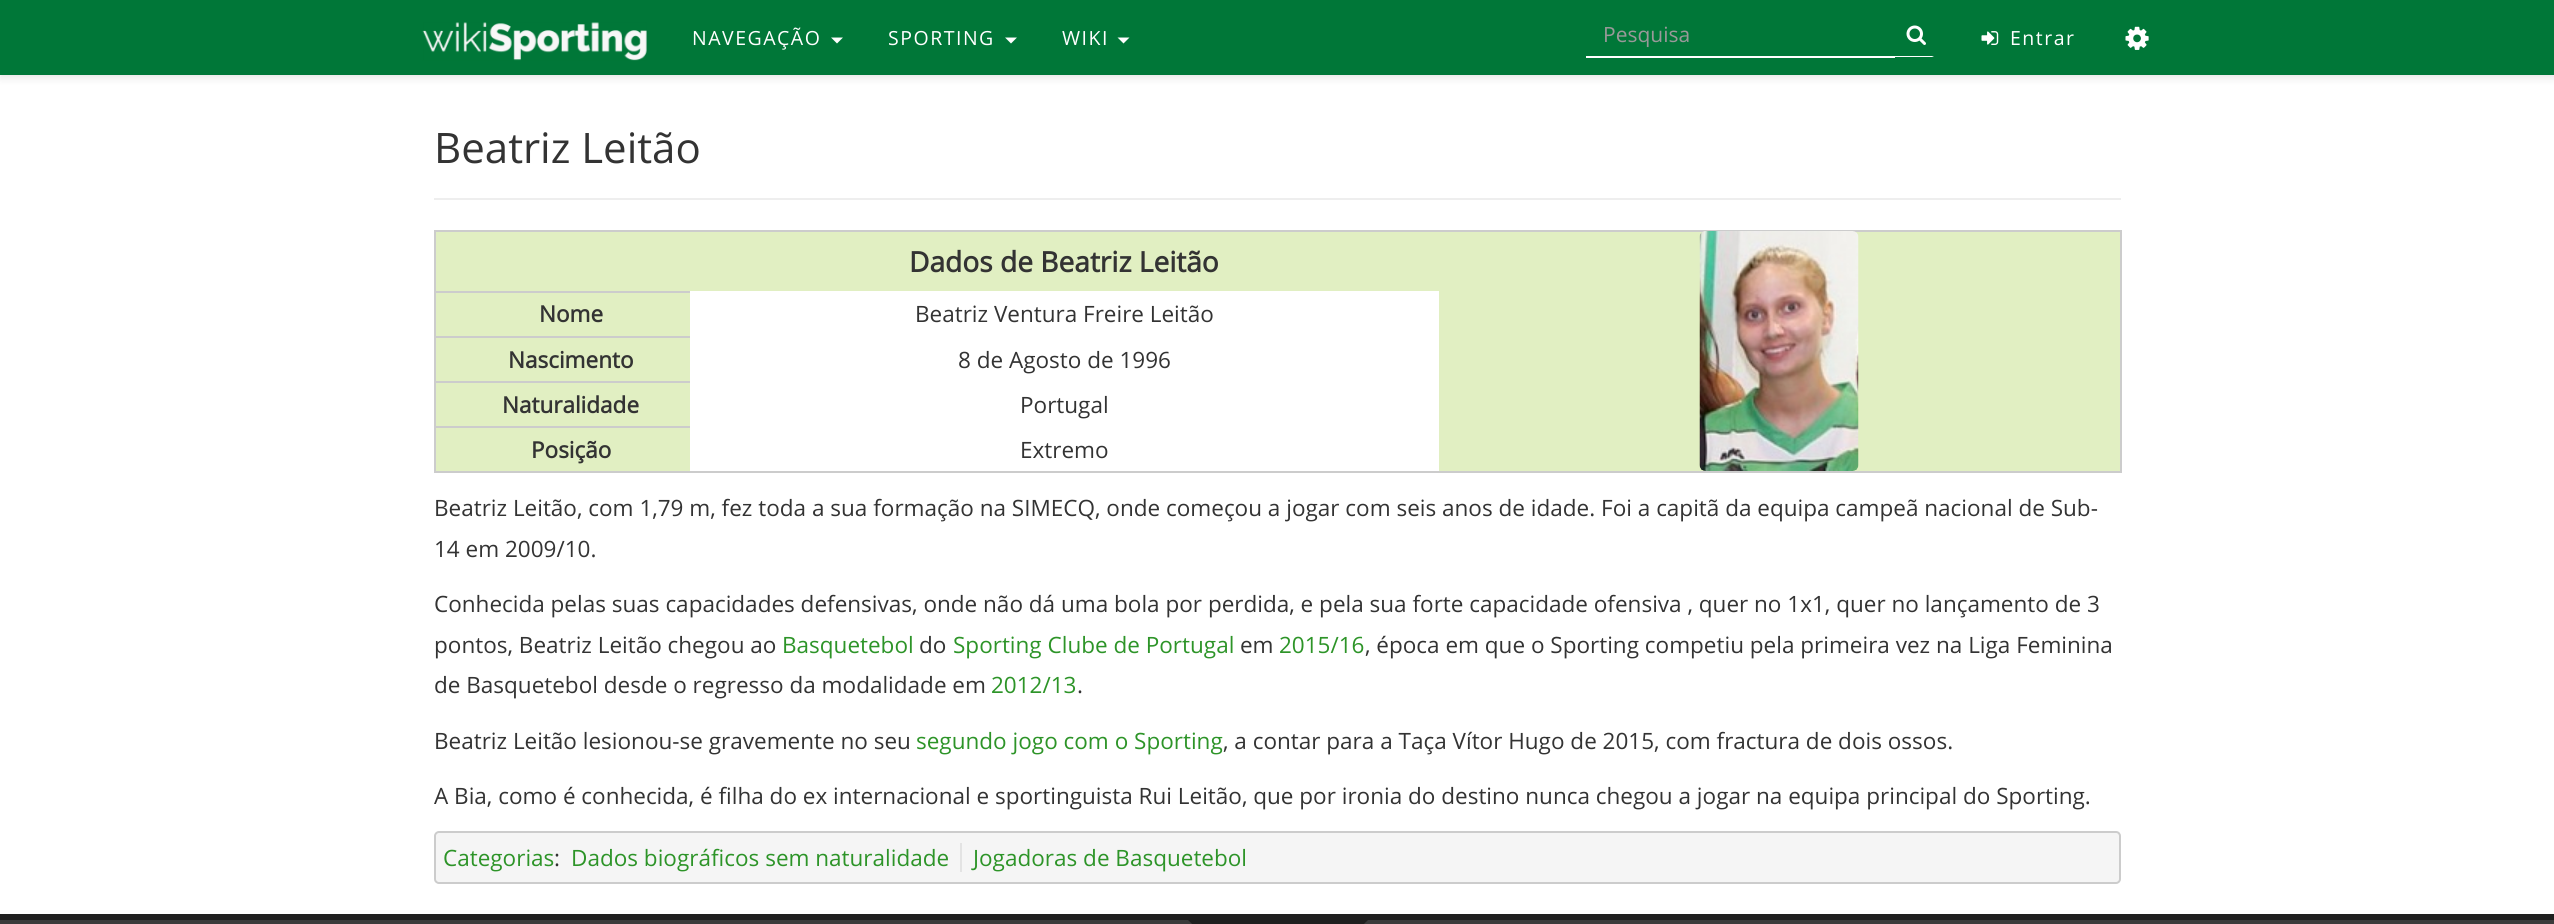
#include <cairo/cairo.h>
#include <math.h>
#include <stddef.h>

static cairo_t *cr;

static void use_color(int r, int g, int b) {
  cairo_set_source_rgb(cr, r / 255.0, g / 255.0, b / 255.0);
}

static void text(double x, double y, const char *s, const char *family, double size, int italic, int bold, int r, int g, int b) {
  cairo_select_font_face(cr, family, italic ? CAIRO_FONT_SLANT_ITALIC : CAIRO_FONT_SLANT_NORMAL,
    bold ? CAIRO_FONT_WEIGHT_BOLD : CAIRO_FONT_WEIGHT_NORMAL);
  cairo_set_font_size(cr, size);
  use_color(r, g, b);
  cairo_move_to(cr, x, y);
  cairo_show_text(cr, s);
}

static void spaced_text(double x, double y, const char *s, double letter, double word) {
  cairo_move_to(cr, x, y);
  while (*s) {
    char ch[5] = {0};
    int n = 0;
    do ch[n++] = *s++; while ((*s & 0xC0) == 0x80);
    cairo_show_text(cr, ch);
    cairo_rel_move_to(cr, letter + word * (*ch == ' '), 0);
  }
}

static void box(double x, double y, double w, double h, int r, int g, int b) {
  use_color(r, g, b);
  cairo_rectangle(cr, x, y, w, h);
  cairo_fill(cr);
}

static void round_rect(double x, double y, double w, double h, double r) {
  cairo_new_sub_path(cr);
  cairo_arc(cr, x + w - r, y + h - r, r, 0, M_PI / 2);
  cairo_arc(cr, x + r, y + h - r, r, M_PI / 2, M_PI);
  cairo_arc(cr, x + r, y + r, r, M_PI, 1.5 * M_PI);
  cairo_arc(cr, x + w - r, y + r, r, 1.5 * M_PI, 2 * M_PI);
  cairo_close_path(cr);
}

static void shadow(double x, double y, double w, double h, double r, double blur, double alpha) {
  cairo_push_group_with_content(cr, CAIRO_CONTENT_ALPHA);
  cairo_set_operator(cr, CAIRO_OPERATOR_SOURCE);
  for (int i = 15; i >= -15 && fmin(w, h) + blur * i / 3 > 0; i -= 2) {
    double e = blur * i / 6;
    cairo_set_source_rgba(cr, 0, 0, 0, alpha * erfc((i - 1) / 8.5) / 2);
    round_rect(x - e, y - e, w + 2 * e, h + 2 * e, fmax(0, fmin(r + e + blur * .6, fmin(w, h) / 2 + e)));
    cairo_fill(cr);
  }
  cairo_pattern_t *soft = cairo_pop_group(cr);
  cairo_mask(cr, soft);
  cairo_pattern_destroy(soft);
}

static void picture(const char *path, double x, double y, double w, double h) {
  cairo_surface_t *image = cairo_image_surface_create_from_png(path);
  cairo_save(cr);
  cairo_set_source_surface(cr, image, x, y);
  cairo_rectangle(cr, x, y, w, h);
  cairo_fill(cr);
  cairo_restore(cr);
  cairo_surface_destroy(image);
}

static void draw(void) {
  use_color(255, 255, 255);
  cairo_paint(cr);
  use_color(0, 0, 0);
  shadow(0, 3, 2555, 75, 0, 4, 0.1);
  box(0, 0, 2554, 75, 0, 119, 56);
  picture("img_01.png", 422, 22, 225, 39);
  use_color(255, 255, 255);
  cairo_new_path(cr);
  cairo_move_to(cr, 831, 37.5);
  cairo_line_to(cr, 843, 37.5);
  cairo_line_to(cr, 837, 43.5);
  cairo_close_path(cr);
  cairo_fill(cr);
  cairo_new_path(cr);
  cairo_move_to(cr, 1005, 37.5);
  cairo_line_to(cr, 1017, 37.5);
  cairo_line_to(cr, 1011, 43.5);
  cairo_close_path(cr);
  cairo_fill(cr);
  cairo_new_path(cr);
  cairo_move_to(cr, 1117.5, 37.5);
  cairo_line_to(cr, 1129.5, 37.5);
  cairo_line_to(cr, 1123.5, 43.5);
  cairo_close_path(cr);
  cairo_fill(cr);
  box(1586, 56, 309, 2, 255, 255, 255);
  cairo_new_path(cr);
  cairo_move_to(cr, 1934, 57);
  cairo_line_to(cr, 1888, 57);
  cairo_line_to(cr, 1888, 56);
  cairo_line_to(cr, 1932, 56);
  cairo_close_path(cr);
  cairo_fill(cr);
  picture("img_02.png", 1906, 25, 20, 20);
  picture("img_03.png", 1981, 31, 18, 14);
  picture("img_04.png", 2125, 26, 24, 24);
  box(434, 198, 1687, 2, 238, 238, 238);
  box(436, 232, 1684, 239, 225, 239, 194);
  box(434, 230, 1687, 2, 204, 204, 204);
  box(2120, 230, 2, 243, 204, 204, 204);
  box(434, 471, 1687, 2, 204, 204, 204);
  box(434, 230, 2, 243, 204, 204, 204);
  picture("img_05.png", 1699, 231, 160, 240);
  box(434, 291, 256, 2, 204, 204, 204);
  box(434, 336, 256, 2, 204, 204, 204);
  box(690, 291, 749, 180, 255, 255, 255);
  box(434, 381, 256, 2, 204, 204, 204);
  box(434, 426, 256, 2, 204, 204, 204);
  use_color(245, 245, 245);
  round_rect(435, 832, 1685, 51, 4);
  cairo_fill_preserve(cr);
  use_color(204, 204, 204);
  cairo_stroke(cr);
  box(960, 843, 2, 29, 227, 227, 227);
  box(0, 920, 2554, 4, 59, 59, 59);
  box(0, 914, 2554, 6, 31, 31, 31);
  box(1233, 920, 90, 4, 31, 31, 31);
  cairo_new_path(cr);
  cairo_move_to(cr, 1188, 920);
  cairo_line_to(cr, 1233, 920);
  cairo_line_to(cr, 1233, 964);
  cairo_close_path(cr);
  cairo_fill(cr);
  cairo_new_path(cr);
  cairo_move_to(cr, 1323, 920);
  cairo_line_to(cr, 1368, 920);
  cairo_line_to(cr, 1323, 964);
  cairo_close_path(cr);
  cairo_fill(cr);
  cairo_select_font_face(cr, "Open Sans", CAIRO_FONT_SLANT_NORMAL, CAIRO_FONT_WEIGHT_NORMAL);
  cairo_set_font_size(cr, 19.5);
  use_color(255, 255, 255);
  spaced_text(692, 45, "NAVEGAÇÃO", 1.5, 0);
  spaced_text(888, 45, "SPORTING", 1.5, 0);
  spaced_text(1062, 45, "WIKI", 1.5, 0);
  text(1603, 42, "Pesquisa", "Open Sans", 21, 0, 0, 153, 153, 153);
  cairo_set_font_size(cr, 19.5);
  use_color(255, 255, 255);
  spaced_text(2010, 45, "Entrar", 1.5, 0);
  text(434, 163, "Beatriz Leitão", "Open Sans", 42, 0, 0, 51, 51, 51);
  text(909, 272, "Dados de Beatriz Leitão", "Open Sans", 28.1, 0, 1, 51, 51, 51);
  text(539, 322, "Nome", "Open Sans", 22.5, 0, 1, 51, 51, 51);
  text(915, 322, "Beatriz Ventura Freire Leitão", "Open Sans", 22.5, 0, 0, 51, 51, 51);
  text(508, 368, "Nascimento", "Open Sans", 22.5, 0, 1, 51, 51, 51);
  text(958, 368, "8 de Agosto de 1996", "Open Sans", 22.5, 0, 0, 51, 51, 51);
  text(502, 413, "Naturalidade", "Open Sans", 22.5, 0, 1, 51, 51, 51);
  text(1020, 413, "Portugal", "Open Sans", 22.5, 0, 0, 51, 51, 51);
  text(531, 458, "Posição", "Open Sans", 22.5, 0, 1, 51, 51, 51);
  text(1020, 458, "Extremo", "Open Sans", 22.5, 0, 0, 51, 51, 51);
  text(434, 516, "Beatriz Leitão, com 1,79 m, fez toda a sua formação na SIMECQ, onde começou a jogar com seis anos de idade. Foi a capitã da equipa campeã nacional de Sub-", "Open Sans", 22.5, 0, 0, 51, 51, 51);
  text(434, 557, "14 em 2009/10.", "Open Sans", 22.5, 0, 0, 51, 51, 51);
  text(434, 612, "Conhecida pelas suas capacidades defensivas, onde não dá uma bola por perdida, e pela sua forte capacidade ofensiva , quer no 1x1, quer no lançamento de 3", "Open Sans", 22.5, 0, 0, 51, 51, 51);
  text(434, 653, "pontos, Beatriz Leitão chegou ao", "Open Sans", 22.5, 0, 0, 51, 51, 51);
  text(782, 653, "Basquetebol", "Open Sans", 22.5, 0, 0, 45, 148, 40);
  text(919, 653, "do", "Open Sans", 22.5, 0, 0, 51, 51, 51);
  text(953, 653, "Sporting Clube de Portugal", "Open Sans", 22.5, 0, 0, 45, 148, 40);
  text(1240, 653, "em", "Open Sans", 22.5, 0, 0, 51, 51, 51);
  text(1279, 653, "2015/16", "Open Sans", 22.5, 0, 0, 45, 148, 40);
  text(1365, 653, ", época em que o Sporting competiu pela primeira vez na Liga Feminina", "Open Sans", 22.5, 0, 0, 51, 51, 51);
  text(434, 693, "de Basquetebol desde o regresso da modalidade em", "Open Sans", 22.5, 0, 0, 51, 51, 51);
  text(991, 693, "2012/13", "Open Sans", 22.5, 0, 0, 45, 148, 40);
  text(1077, 693, ".", "Open Sans", 22.5, 0, 0, 51, 51, 51);
  text(434, 749, "Beatriz Leitão lesionou-se gravemente no seu", "Open Sans", 22.5, 0, 0, 51, 51, 51);
  text(916, 749, "segundo jogo com o Sporting", "Open Sans", 22.5, 0, 0, 45, 148, 40);
  text(1223, 749, ", a contar para a Taça Vítor Hugo de 2015, com fractura de dois ossos.", "Open Sans", 22.5, 0, 0, 51, 51, 51);
  text(434, 804, "A Bia, como é conhecida, é filha do ex internacional e sportinguista Rui Leitão, que por ironia do destino nunca chegou a jogar na equipa principal do Sporting.", "Open Sans", 22.5, 0, 0, 51, 51, 51);
  text(443, 866, "Categorias", "Open Sans", 22.5, 0, 0, 45, 148, 40);
  text(554, 866, ":", "Open Sans", 22.5, 0, 0, 51, 51, 51);
  text(571, 866, "Dados biográficos sem naturalidade", "Open Sans", 22.5, 0, 0, 45, 148, 40);
  text(973, 866, "Jogadoras de Basquetebol", "Open Sans", 22.5, 0, 0, 45, 148, 40);
}

int main(void) {
  cairo_surface_t *surface = cairo_image_surface_create(CAIRO_FORMAT_RGB24, 2554, 924);
  cr = cairo_create(surface);
  cairo_font_options_t *options = cairo_font_options_create();
  cairo_font_options_set_hint_metrics(options, CAIRO_HINT_METRICS_OFF);
  cairo_font_options_set_hint_style(options, CAIRO_HINT_STYLE_NONE);
  cairo_set_font_options(cr, options);
  cairo_set_miter_limit(cr, 4);
  draw();
  cairo_surface_write_to_png(surface, "out.png");
  cairo_font_options_destroy(options);
  cairo_destroy(cr);
  cairo_surface_destroy(surface);
  return 0;
}
